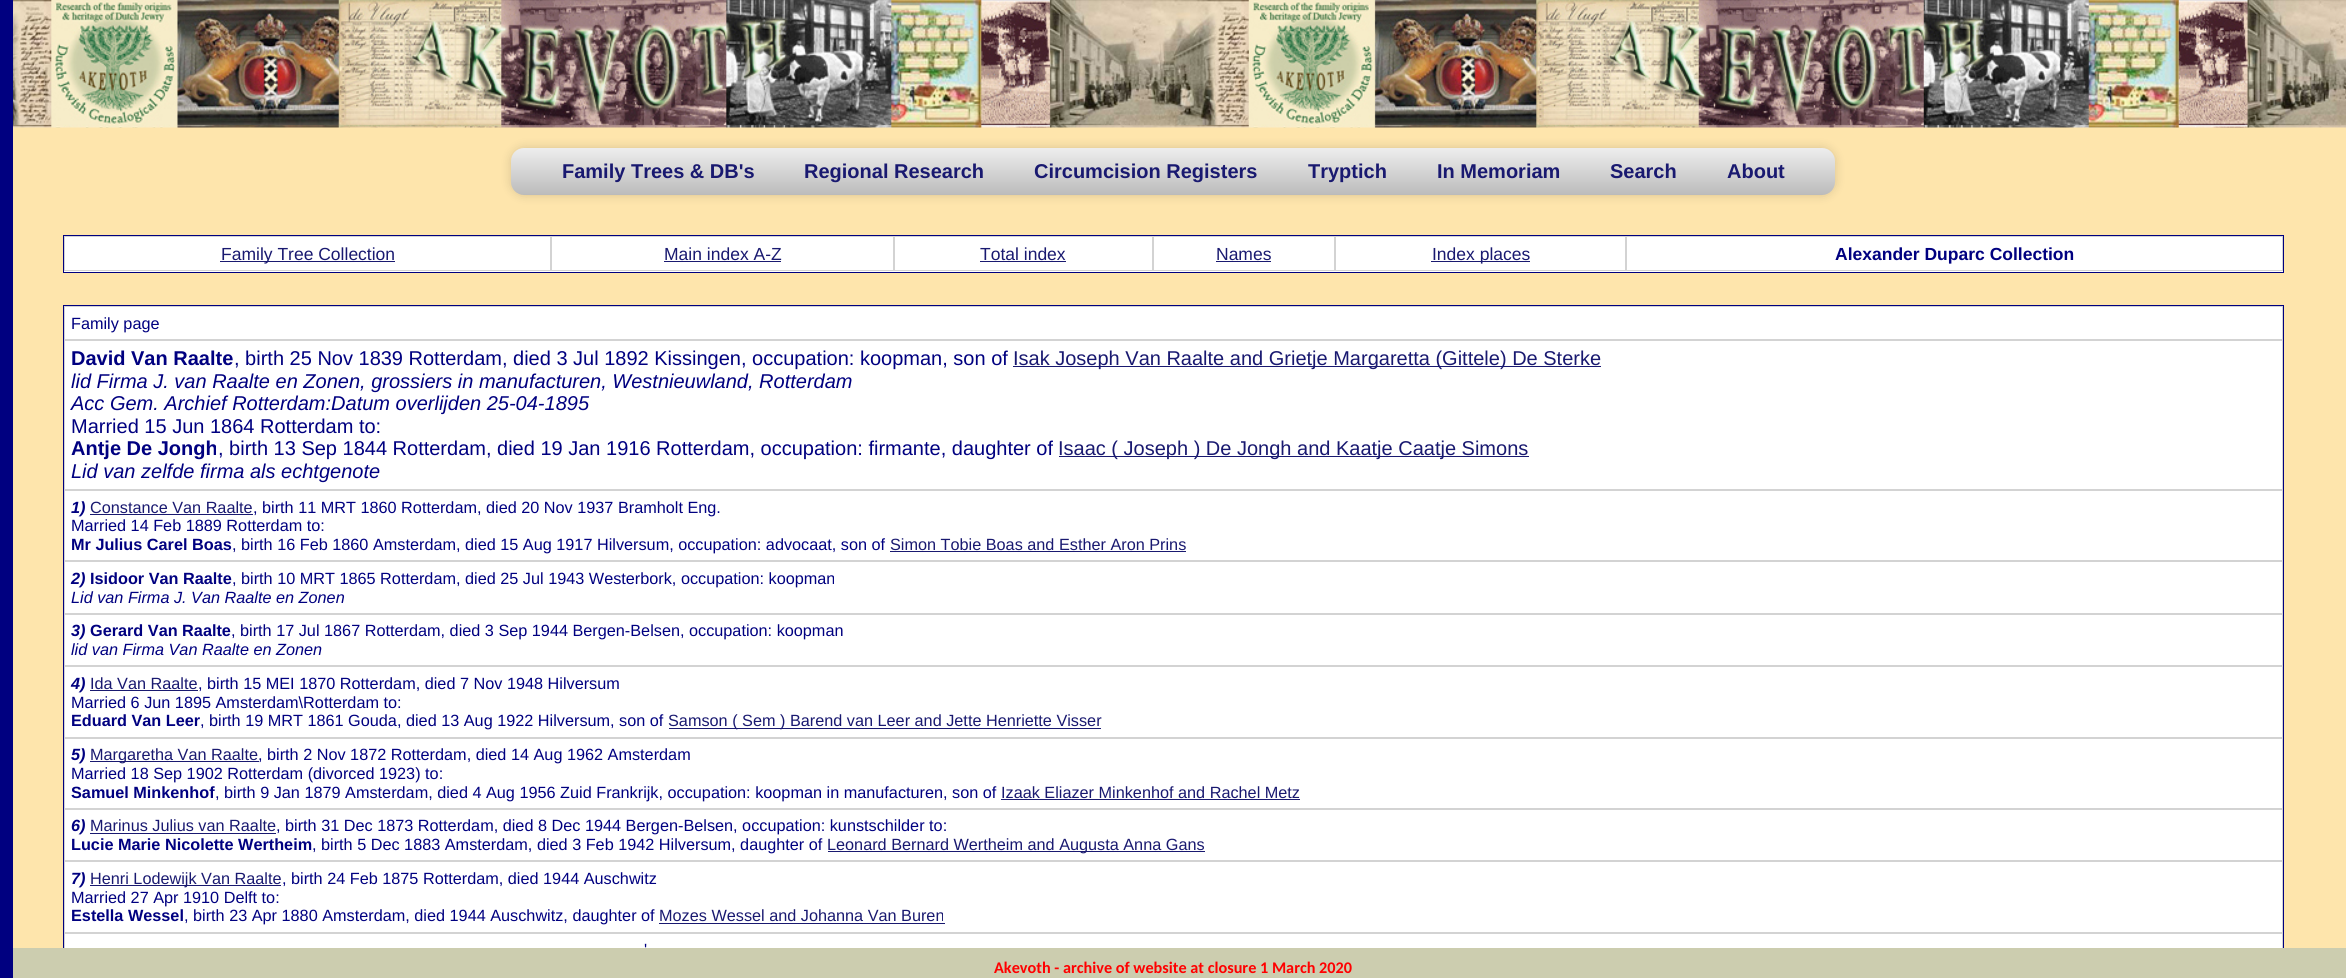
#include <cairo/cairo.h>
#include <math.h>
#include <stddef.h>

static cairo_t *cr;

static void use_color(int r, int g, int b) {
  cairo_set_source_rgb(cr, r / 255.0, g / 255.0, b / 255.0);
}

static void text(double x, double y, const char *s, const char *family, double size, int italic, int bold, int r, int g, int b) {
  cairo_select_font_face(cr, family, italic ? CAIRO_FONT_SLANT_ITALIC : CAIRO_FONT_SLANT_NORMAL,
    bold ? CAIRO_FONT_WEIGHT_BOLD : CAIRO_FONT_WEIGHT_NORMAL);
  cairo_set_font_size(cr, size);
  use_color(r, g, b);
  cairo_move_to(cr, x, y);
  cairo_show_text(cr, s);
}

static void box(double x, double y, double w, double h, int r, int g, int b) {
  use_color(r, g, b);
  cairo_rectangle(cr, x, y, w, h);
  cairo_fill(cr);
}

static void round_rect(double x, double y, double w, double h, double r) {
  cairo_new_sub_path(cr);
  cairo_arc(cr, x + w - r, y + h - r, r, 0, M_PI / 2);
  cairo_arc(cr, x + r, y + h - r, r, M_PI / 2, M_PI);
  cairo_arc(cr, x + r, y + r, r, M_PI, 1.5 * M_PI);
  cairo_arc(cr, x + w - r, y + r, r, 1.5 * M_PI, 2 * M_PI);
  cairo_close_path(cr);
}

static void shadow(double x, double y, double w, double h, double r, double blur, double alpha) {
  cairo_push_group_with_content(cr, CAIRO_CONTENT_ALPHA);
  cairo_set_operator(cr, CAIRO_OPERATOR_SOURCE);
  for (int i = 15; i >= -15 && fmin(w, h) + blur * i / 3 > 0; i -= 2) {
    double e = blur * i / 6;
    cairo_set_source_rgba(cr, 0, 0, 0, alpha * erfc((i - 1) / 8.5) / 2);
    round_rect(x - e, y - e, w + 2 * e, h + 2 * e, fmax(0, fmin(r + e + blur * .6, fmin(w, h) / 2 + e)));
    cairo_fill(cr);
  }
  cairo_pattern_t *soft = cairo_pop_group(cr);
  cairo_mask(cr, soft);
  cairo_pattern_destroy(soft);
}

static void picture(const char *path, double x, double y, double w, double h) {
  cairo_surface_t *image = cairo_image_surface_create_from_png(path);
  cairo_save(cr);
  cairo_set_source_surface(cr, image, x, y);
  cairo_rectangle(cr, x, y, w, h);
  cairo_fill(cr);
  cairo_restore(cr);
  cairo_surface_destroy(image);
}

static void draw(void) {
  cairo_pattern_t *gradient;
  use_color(254, 229, 172);
  cairo_paint(cr);
  picture("img_01.png", 13, 0, 2333, 128);
  use_color(0, 0, 0);
  shadow(511, 148, 1324, 47, 13, 5.5, 0.15);
  gradient = cairo_pattern_create_linear(1173, 147, 1173, 195);
  cairo_pattern_add_color_stop_rgba(gradient, 0, 0.937, 0.937, 0.937, 1);
  cairo_pattern_add_color_stop_rgba(gradient, 1, 0.733, 0.733, 0.733, 1);
  cairo_set_source(cr, gradient);
  cairo_pattern_destroy(gradient);
  round_rect(511, 148, 1324, 47, 13);
  cairo_fill(cr);
  box(0, 0, 13, 978, 0, 0, 128);
  box(64, 237, 2219, 35, 255, 255, 255);
  cairo_rectangle(cr, 63.5, 235.5, 2220, 37);
  use_color(0, 0, 128);
  cairo_set_line_width(cr, 1);
  cairo_stroke(cr);
  cairo_rectangle(cr, 64.5, 236.5, 486, 34);
  use_color(211, 211, 211);
  cairo_stroke(cr);
  box(220, 261, 175, 1, 25, 25, 112);
  cairo_rectangle(cr, 551.5, 236.5, 342, 34);
  use_color(211, 211, 211);
  cairo_stroke(cr);
  box(664, 261, 117, 1, 25, 25, 112);
  cairo_rectangle(cr, 894.5, 236.5, 258, 34);
  use_color(211, 211, 211);
  cairo_stroke(cr);
  box(980, 261, 86, 1, 25, 25, 112);
  cairo_rectangle(cr, 1153.5, 236.5, 181, 34);
  use_color(211, 211, 211);
  cairo_stroke(cr);
  box(1216, 261, 55, 1, 25, 25, 112);
  cairo_rectangle(cr, 1335.5, 236.5, 290, 34);
  use_color(211, 211, 211);
  cairo_stroke(cr);
  box(1431, 261, 99, 1, 25, 25, 112);
  cairo_rectangle(cr, 1626.5, 236.5, 656, 34);
  use_color(211, 211, 211);
  cairo_stroke(cr);
  box(65, 307, 2217, 641, 255, 255, 255);
  cairo_rectangle(cr, 63.5, 305.5, 2220, 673);
  use_color(0, 0, 128);
  cairo_stroke(cr);
  cairo_rectangle(cr, 64.5, 306.5, 2218, 33);
  use_color(211, 211, 211);
  cairo_stroke(cr);
  cairo_rectangle(cr, 64.5, 340.5, 2218, 149);
  cairo_stroke(cr);
  box(1013, 366, 588, 1, 25, 25, 112);
  box(1059, 456, 470, 1, 25, 25, 112);
  cairo_rectangle(cr, 64.5, 490.5, 2218, 70);
  use_color(211, 211, 211);
  cairo_stroke(cr);
  box(90, 514, 163, 1, 25, 25, 112);
  box(890, 551, 296, 1, 25, 25, 112);
  cairo_rectangle(cr, 64.5, 561.5, 2218, 52);
  use_color(211, 211, 211);
  cairo_stroke(cr);
  cairo_rectangle(cr, 64.5, 614.5, 2218, 51);
  cairo_stroke(cr);
  cairo_rectangle(cr, 64.5, 666.5, 2218, 71);
  cairo_stroke(cr);
  box(90, 690, 108, 1, 25, 25, 112);
  box(669, 728, 432, 1, 25, 25, 112);
  cairo_rectangle(cr, 64.5, 738.5, 2218, 70);
  use_color(211, 211, 211);
  cairo_stroke(cr);
  box(90, 761, 169, 1, 25, 25, 112);
  box(1001, 799, 299, 1, 25, 25, 112);
  cairo_rectangle(cr, 64.5, 809.5, 2218, 51);
  use_color(211, 211, 211);
  cairo_stroke(cr);
  box(90, 833, 186, 1, 25, 25, 112);
  box(828, 851, 377, 1, 25, 25, 112);
  cairo_rectangle(cr, 64.5, 861.5, 2218, 71);
  use_color(211, 211, 211);
  cairo_stroke(cr);
  box(90, 885, 191, 1, 25, 25, 112);
  box(659, 923, 286, 1, 25, 25, 112);
  cairo_rectangle(cr, 64.5, 933.5, 2218, 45);
  use_color(211, 211, 211);
  cairo_stroke(cr);
  box(13, 948, 2333, 30, 204, 205, 175);
  text(562, 178, "Family Trees & DB's", "Liberation Sans", 20, 0, 1, 25, 25, 112);
  text(804, 178, "Regional Research", "Liberation Sans", 20, 0, 1, 25, 25, 112);
  text(1034, 178, "Circumcision Registers", "Liberation Sans", 20, 0, 1, 25, 25, 112);
  text(1308, 178, "Tryptich", "Liberation Sans", 20, 0, 1, 25, 25, 112);
  text(1437, 178, "In Memoriam", "Liberation Sans", 20, 0, 1, 25, 25, 112);
  text(1610, 178, "Search", "Liberation Sans", 20, 0, 1, 25, 25, 112);
  text(1727, 178, "About", "Liberation Sans", 20, 0, 1, 25, 25, 112);
  text(221, 260, "Family Tree Collection", "Liberation Sans", 17.5, 0, 0, 25, 25, 112);
  text(664, 260, "Main index A-Z", "Liberation Sans", 17.5, 0, 0, 25, 25, 112);
  text(980, 260, "Total index", "Liberation Sans", 17.5, 0, 0, 25, 25, 112);
  text(1216, 260, "Names", "Liberation Sans", 17.5, 0, 0, 25, 25, 112);
  text(1432, 260, "Index places", "Liberation Sans", 17.5, 0, 0, 25, 25, 112);
  text(1835, 260, "Alexander Duparc Collection", "Liberation Sans", 17.5, 0, 1, 0, 0, 128);
  text(71, 329, "Family page", "Liberation Sans", 16.25, 0, 0, 0, 0, 128);
  text(71, 365, "David Van Raalte", "Liberation Sans", 20, 0, 1, 0, 0, 128);
  text(234, 365, ", birth 25 Nov 1839 Rotterdam, died 3 Jul 1892 Kissingen, occupation: koopman, son of", "Liberation Sans", 20, 0, 0, 0, 0, 128);
  text(1013, 365, "Isak Joseph Van Raalte and Grietje Margaretta (Gittele) De Sterke", "Liberation Sans", 20, 0, 0, 25, 25, 112);
  text(71, 388, "lid Firma J. van Raalte en Zonen, grossiers in manufacturen, Westnieuwland, Rotterdam", "Liberation Sans", 20, 1, 0, 0, 0, 128);
  text(71, 410, "Acc Gem. Archief Rotterdam:Datum overlijden 25-04-1895", "Liberation Sans", 20, 1, 0, 0, 0, 128);
  text(71, 433, "Married 15 Jun 1864 Rotterdam to:", "Liberation Sans", 20, 0, 0, 0, 0, 128);
  text(71, 455, "Antje De Jongh", "Liberation Sans", 20, 0, 1, 0, 0, 128);
  text(218, 455, ", birth 13 Sep 1844 Rotterdam, died 19 Jan 1916 Rotterdam, occupation: firmante, daughter of", "Liberation Sans", 20, 0, 0, 0, 0, 128);
  text(1058, 455, "Isaac ( Joseph ) De Jongh and Kaatje Caatje Simons", "Liberation Sans", 20, 0, 0, 25, 25, 112);
  text(71, 478, "Lid van zelfde firma als echtgenote", "Liberation Sans", 20, 1, 0, 0, 0, 128);
  text(71, 513, "1)", "Liberation Sans", 16.25, 1, 1, 0, 0, 128);
  text(90, 513, "Constance Van Raalte", "Liberation Sans", 16.25, 0, 0, 25, 25, 112);
  text(253, 513, ", birth 11 MRT 1860 Rotterdam, died 20 Nov 1937 Bramholt Eng.", "Liberation Sans", 16.25, 0, 0, 0, 0, 128);
  text(71, 531, "Married 14 Feb 1889 Rotterdam to:", "Liberation Sans", 16.25, 0, 0, 0, 0, 128);
  text(71, 550, "Mr Julius Carel Boas", "Liberation Sans", 16.25, 0, 1, 0, 0, 128);
  text(232, 550, ", birth 16 Feb 1860 Amsterdam, died 15 Aug 1917 Hilversum, occupation: advocaat, son of", "Liberation Sans", 16.25, 0, 0, 0, 0, 128);
  text(890, 550, "Simon Tobie Boas and Esther Aron Prins", "Liberation Sans", 16.25, 0, 0, 25, 25, 112);
  text(71, 584, "2)", "Liberation Sans", 16.25, 1, 1, 0, 0, 128);
  text(90, 584, "Isidoor Van Raalte", "Liberation Sans", 16.25, 0, 1, 0, 0, 128);
  text(232, 584, ", birth 10 MRT 1865 Rotterdam, died 25 Jul 1943 Westerbork, occupation: koopman", "Liberation Sans", 16.25, 0, 0, 0, 0, 128);
  text(71, 603, "Lid van Firma J. Van Raalte en Zonen", "Liberation Sans", 16.25, 1, 0, 0, 0, 128);
  text(71, 636, "3)", "Liberation Sans", 16.25, 1, 1, 0, 0, 128);
  text(90, 636, "Gerard Van Raalte", "Liberation Sans", 16.25, 0, 1, 0, 0, 128);
  text(231, 636, ", birth 17 Jul 1867 Rotterdam, died 3 Sep 1944 Bergen-Belsen, occupation: koopman", "Liberation Sans", 16.25, 0, 0, 0, 0, 128);
  text(71, 655, "lid van Firma Van Raalte en Zonen", "Liberation Sans", 16.25, 1, 0, 0, 0, 128);
  text(71, 689, "4)", "Liberation Sans", 16.25, 1, 1, 0, 0, 128);
  text(90, 689, "Ida Van Raalte", "Liberation Sans", 16.25, 0, 0, 25, 25, 112);
  text(198, 689, ", birth 15 MEI 1870 Rotterdam, died 7 Nov 1948 Hilversum", "Liberation Sans", 16.25, 0, 0, 0, 0, 128);
  text(71, 708, "Married 6 Jun 1895 Amsterdam\\Rotterdam to:", "Liberation Sans", 16.25, 0, 0, 0, 0, 128);
  text(71, 726, "Eduard Van Leer", "Liberation Sans", 16.25, 0, 1, 0, 0, 128);
  text(200, 726, ", birth 19 MRT 1861 Gouda, died 13 Aug 1922 Hilversum, son of", "Liberation Sans", 16.25, 0, 0, 0, 0, 128);
  text(668, 726, "Samson ( Sem ) Barend van Leer and Jette Henriette Visser", "Liberation Sans", 16.25, 0, 0, 25, 25, 112);
  text(71, 760, "5)", "Liberation Sans", 16.25, 1, 1, 0, 0, 128);
  text(90, 760, "Margaretha Van Raalte", "Liberation Sans", 16.25, 0, 0, 25, 25, 112);
  text(258, 760, ", birth 2 Nov 1872 Rotterdam, died 14 Aug 1962 Amsterdam", "Liberation Sans", 16.25, 0, 0, 0, 0, 128);
  text(71, 779, "Married 18 Sep 1902 Rotterdam (divorced 1923) to:", "Liberation Sans", 16.25, 0, 0, 0, 0, 128);
  text(71, 798, "Samuel Minkenhof", "Liberation Sans", 16.25, 0, 1, 0, 0, 128);
  text(215, 798, ", birth 9 Jan 1879 Amsterdam, died 4 Aug 1956 Zuid Frankrijk, occupation: koopman in manufacturen, son of", "Liberation Sans", 16.25, 0, 0, 0, 0, 128);
  text(1001, 798, "Izaak Eliazer Minkenhof and Rachel Metz", "Liberation Sans", 16.25, 0, 0, 25, 25, 112);
  text(71, 831, "6)", "Liberation Sans", 16.25, 1, 1, 0, 0, 128);
  text(90, 831, "Marinus Julius van Raalte", "Liberation Sans", 16.25, 0, 0, 25, 25, 112);
  text(276, 831, ", birth 31 Dec 1873 Rotterdam, died 8 Dec 1944 Bergen-Belsen, occupation: kunstschilder to:", "Liberation Sans", 16.25, 0, 0, 0, 0, 128);
  text(71, 850, "Lucie Marie Nicolette Wertheim", "Liberation Sans", 16.25, 0, 1, 0, 0, 128);
  text(312, 850, ", birth 5 Dec 1883 Amsterdam, died 3 Feb 1942 Hilversum, daughter of", "Liberation Sans", 16.25, 0, 0, 0, 0, 128);
  text(827, 850, "Leonard Bernard Wertheim and Augusta Anna Gans", "Liberation Sans", 16.25, 0, 0, 25, 25, 112);
  text(71, 884, "7)", "Liberation Sans", 16.25, 1, 1, 0, 0, 128);
  text(90, 884, "Henri Lodewijk Van Raalte", "Liberation Sans", 16.25, 0, 0, 25, 25, 112);
  text(282, 884, ", birth 24 Feb 1875 Rotterdam, died 1944 Auschwitz", "Liberation Sans", 16.25, 0, 0, 0, 0, 128);
  text(71, 903, "Married 27 Apr 1910 Delft to:", "Liberation Sans", 16.25, 0, 0, 0, 0, 128);
  text(71, 921, "Estella Wessel", "Liberation Sans", 16.25, 0, 1, 0, 0, 128);
  text(184, 921, ", birth 23 Apr 1880 Amsterdam, died 1944 Auschwitz, daughter of", "Liberation Sans", 16.25, 0, 0, 0, 0, 128);
  text(659, 921, "Mozes Wessel and Johanna Van Buren", "Liberation Sans", 16.25, 0, 0, 25, 25, 112);
  text(644, 955, "'", "Liberation Sans", 16.25, 0, 0, 0, 0, 128);
  text(994, 973, "Akevoth - archive of website at closure 1 March 2020", "Carlito", 16.25, 0, 1, 255, 0, 0);
}

int main(void) {
  cairo_surface_t *surface = cairo_image_surface_create(CAIRO_FORMAT_RGB24, 2346, 978);
  cr = cairo_create(surface);
  cairo_font_options_t *options = cairo_font_options_create();
  cairo_font_options_set_hint_metrics(options, CAIRO_HINT_METRICS_OFF);
  cairo_font_options_set_hint_style(options, CAIRO_HINT_STYLE_NONE);
  cairo_set_font_options(cr, options);
  cairo_set_miter_limit(cr, 4);
  draw();
  cairo_surface_write_to_png(surface, "out.png");
  cairo_font_options_destroy(options);
  cairo_destroy(cr);
  cairo_surface_destroy(surface);
  return 0;
}
